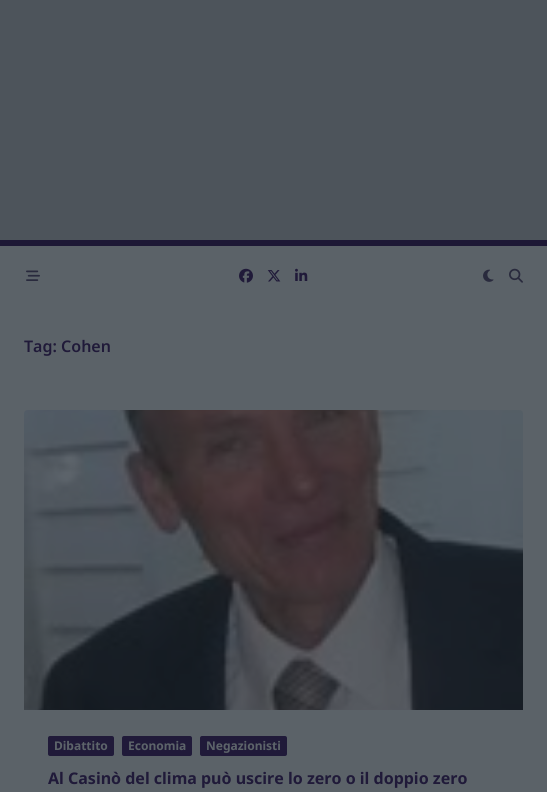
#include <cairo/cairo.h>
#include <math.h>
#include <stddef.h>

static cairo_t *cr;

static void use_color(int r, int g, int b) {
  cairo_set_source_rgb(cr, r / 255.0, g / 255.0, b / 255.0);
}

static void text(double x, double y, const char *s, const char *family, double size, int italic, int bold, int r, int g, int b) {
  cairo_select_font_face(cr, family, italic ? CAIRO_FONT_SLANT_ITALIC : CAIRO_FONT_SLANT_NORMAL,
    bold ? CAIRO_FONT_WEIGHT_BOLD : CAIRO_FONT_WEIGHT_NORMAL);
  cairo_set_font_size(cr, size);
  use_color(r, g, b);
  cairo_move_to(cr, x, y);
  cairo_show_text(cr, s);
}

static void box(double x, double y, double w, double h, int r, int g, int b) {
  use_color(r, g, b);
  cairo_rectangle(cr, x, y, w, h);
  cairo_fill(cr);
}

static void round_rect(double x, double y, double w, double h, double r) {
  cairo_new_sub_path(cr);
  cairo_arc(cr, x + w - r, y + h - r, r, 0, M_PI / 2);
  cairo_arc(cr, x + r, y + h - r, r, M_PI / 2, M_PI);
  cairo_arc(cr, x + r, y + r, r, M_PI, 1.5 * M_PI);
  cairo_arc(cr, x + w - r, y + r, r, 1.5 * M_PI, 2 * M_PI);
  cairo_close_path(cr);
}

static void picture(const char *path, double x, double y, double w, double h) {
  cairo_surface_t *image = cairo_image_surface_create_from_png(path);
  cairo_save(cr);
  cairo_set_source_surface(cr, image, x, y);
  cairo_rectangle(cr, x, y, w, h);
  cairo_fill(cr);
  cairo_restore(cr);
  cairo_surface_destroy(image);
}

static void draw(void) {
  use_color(91, 98, 104);
  cairo_paint(cr);
  box(0, 0, 547, 240, 77, 84, 91);
  box(0, 240, 547, 6, 29, 24, 53);
  picture("img_01.png", 26, 270, 14, 11);
  picture("img_02.png", 239, 268, 14, 15);
  picture("img_03.png", 267, 270, 14, 12);
  picture("img_04.png", 295, 268, 13, 13);
  picture("img_05.png", 483, 269, 11, 13);
  picture("img_06.png", 509, 268, 14, 15);
  picture("img_07.png", 24, 410, 499, 300);
  use_color(32, 26, 57);
  round_rect(48, 736, 66, 20, 2);
  cairo_fill(cr);
  round_rect(122, 736, 70, 20, 2);
  cairo_fill(cr);
  round_rect(200, 736, 87, 20, 2);
  cairo_fill(cr);
  text(24, 352, "Tag: Cohen", "Noto Sans SemiBold", 16, 0, 0, 32, 26, 57);
  text(54, 750, "Dibattito", "Noto Sans", 12, 0, 1, 93, 100, 106);
  text(128, 750, "Economia", "Noto Sans", 12, 0, 1, 93, 100, 106);
  text(206, 750, "Negazionisti", "Noto Sans", 12, 0, 1, 93, 100, 106);
  text(48, 784, "Al Casinò del clima può uscire lo zero o il doppio zero", "Noto Sans", 16, 0, 1, 32, 26, 57);
}

int main(void) {
  cairo_surface_t *surface = cairo_image_surface_create(CAIRO_FORMAT_RGB24, 547, 792);
  cr = cairo_create(surface);
  cairo_font_options_t *options = cairo_font_options_create();
  cairo_font_options_set_hint_metrics(options, CAIRO_HINT_METRICS_OFF);
  cairo_font_options_set_hint_style(options, CAIRO_HINT_STYLE_NONE);
  cairo_set_font_options(cr, options);
  cairo_set_miter_limit(cr, 4);
  draw();
  cairo_surface_write_to_png(surface, "out.png");
  cairo_font_options_destroy(options);
  cairo_destroy(cr);
  cairo_surface_destroy(surface);
  return 0;
}
